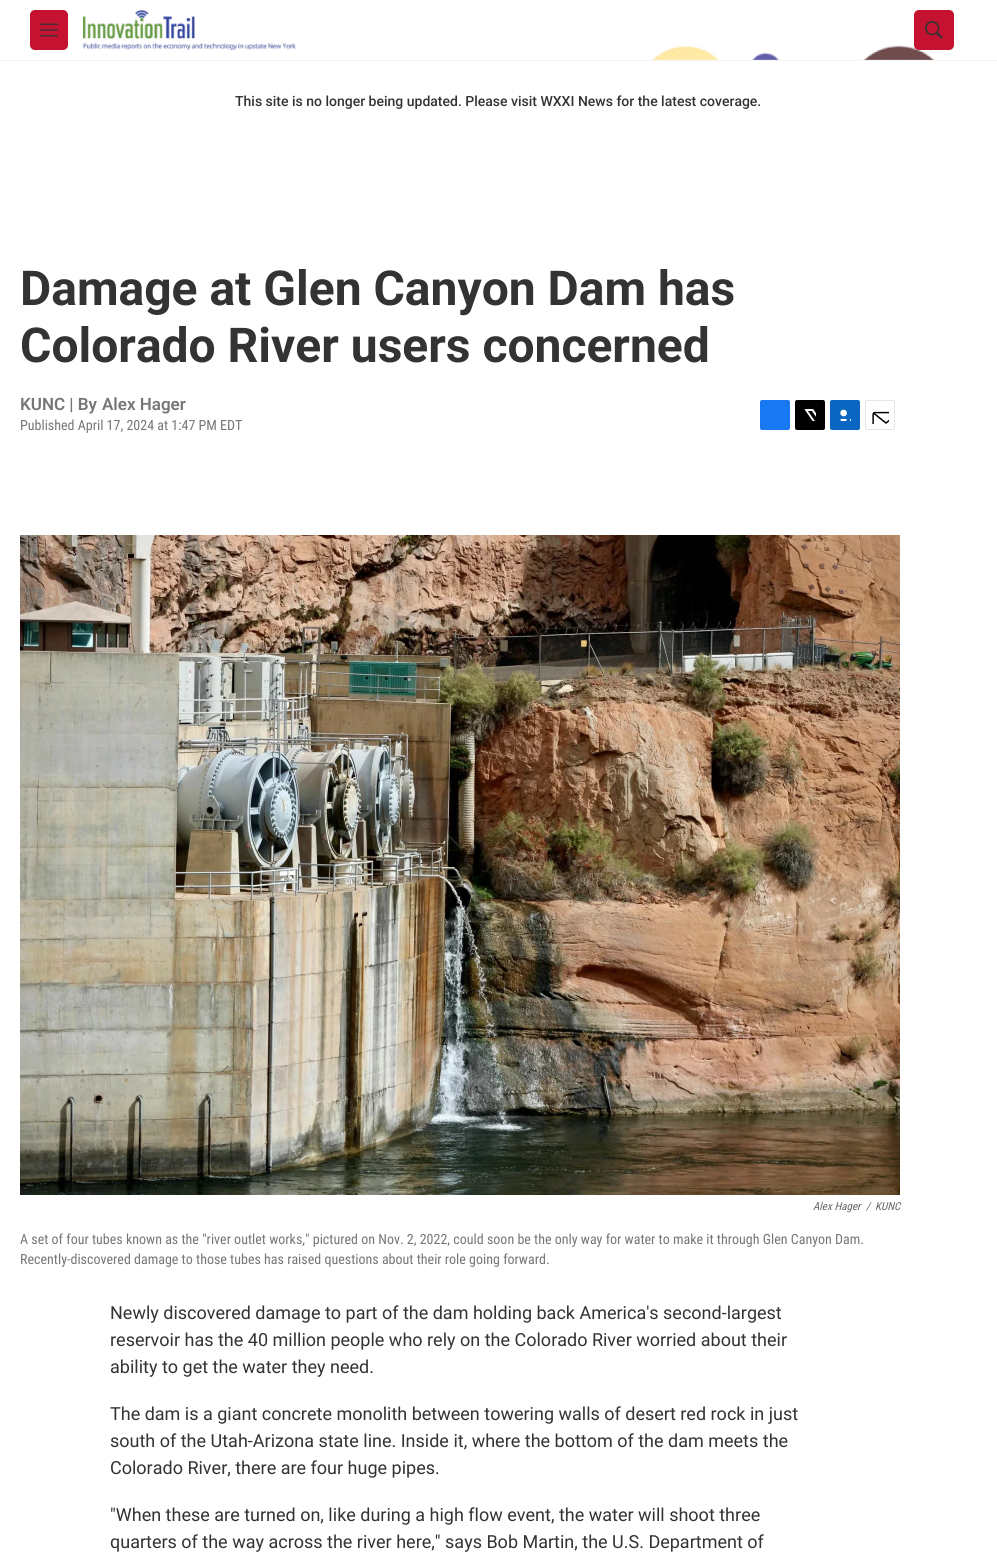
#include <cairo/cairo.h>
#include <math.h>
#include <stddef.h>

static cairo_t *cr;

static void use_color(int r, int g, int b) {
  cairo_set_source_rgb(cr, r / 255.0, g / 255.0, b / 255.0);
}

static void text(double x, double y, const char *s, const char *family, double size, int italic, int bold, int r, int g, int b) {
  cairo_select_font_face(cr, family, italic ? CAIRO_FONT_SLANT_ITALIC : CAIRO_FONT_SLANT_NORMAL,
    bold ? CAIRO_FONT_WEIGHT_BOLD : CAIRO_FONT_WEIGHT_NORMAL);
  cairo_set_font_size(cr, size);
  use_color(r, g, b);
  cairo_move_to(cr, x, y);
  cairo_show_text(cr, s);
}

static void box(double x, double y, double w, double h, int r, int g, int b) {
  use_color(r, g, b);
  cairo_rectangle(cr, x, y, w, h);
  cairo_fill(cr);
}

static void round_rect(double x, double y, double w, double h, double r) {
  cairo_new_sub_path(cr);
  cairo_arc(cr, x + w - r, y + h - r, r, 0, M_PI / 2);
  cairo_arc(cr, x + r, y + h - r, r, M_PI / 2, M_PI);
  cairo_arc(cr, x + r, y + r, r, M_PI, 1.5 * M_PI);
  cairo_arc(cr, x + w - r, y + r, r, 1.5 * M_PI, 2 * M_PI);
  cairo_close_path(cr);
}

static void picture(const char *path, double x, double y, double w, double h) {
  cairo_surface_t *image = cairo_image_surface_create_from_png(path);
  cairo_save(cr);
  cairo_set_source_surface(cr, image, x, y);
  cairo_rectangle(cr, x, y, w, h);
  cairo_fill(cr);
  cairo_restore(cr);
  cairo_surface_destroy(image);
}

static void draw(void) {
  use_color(255, 255, 255);
  cairo_paint(cr);
  box(0, 60, 997, 1, 245, 245, 245);
  use_color(196, 18, 48);
  round_rect(30, 10, 38, 40, 5);
  cairo_fill(cr);
  picture("img_01.png", 40, 23, 18, 14);
  picture("img_02.png", 83, 10, 213, 40);
  picture("img_04.png", 652, 45, 283, 15);
  round_rect(914, 10, 40, 40, 5);
  cairo_fill(cr);
  picture("img_03.png", 925, 21, 18, 18);
  use_color(23, 120, 242);
  round_rect(760, 400, 30, 30, 2);
  cairo_fill(cr);
  use_color(0, 0, 0);
  round_rect(795, 400, 30, 30, 2);
  cairo_fill(cr);
  picture("img_05.png", 804, 409, 12, 12);
  use_color(10, 102, 193);
  round_rect(830, 400, 30, 30, 2);
  cairo_fill(cr);
  picture("img_06.png", 840, 409, 11, 12);
  round_rect(865.5, 400.5, 29, 29, 1.5);
  use_color(230, 230, 230);
  cairo_set_line_width(cr, 1);
  cairo_stroke(cr);
  picture("img_07.png", 872, 411, 17, 13);
  picture("img_08.png", 20, 535, 880, 660);
  text(235, 106, "This site is no longer being updated. Please visit WXXI News for the latest coverage.", "Roboto Medium", 14, 0, 0, 51, 51, 51);
  text(20, 305, "Damage at Glen Canyon Dam has", "Roboto", 48, 0, 1, 51, 51, 51);
  text(20, 362, "Colorado River users concerned", "Roboto", 48, 0, 1, 51, 51, 51);
  text(20, 410, "KUNC | By", "Roboto SemiBold", 17, 0, 0, 118, 118, 118);
  text(102, 410, "Alex Hager", "Roboto SemiBold", 17, 0, 0, 118, 118, 118);
  text(20, 430, "Published April 17, 2024 at 1:47 PM EDT", "Roboto Condensed", 14, 0, 0, 118, 118, 118);
  text(813, 1210, "Alex Hager", "Roboto Condensed", 11, 1, 0, 102, 102, 102);
  text(866, 1210, "/", "Roboto Condensed", 11, 1, 0, 102, 102, 102);
  text(875, 1210, "KUNC", "Roboto Condensed", 11, 1, 0, 102, 102, 102);
  text(20, 1244, "A set of four tubes known as the \"river outlet works,\" pictured on Nov. 2, 2022, could soon be the only way for water to make it through Glen Canyon Dam.", "Roboto Condensed", 14, 0, 0, 118, 118, 118);
  text(20, 1264, "Recently-discovered damage to those tubes has raised questions about their role going forward.", "Roboto Condensed", 14, 0, 0, 118, 118, 118);
  text(110, 1319, "Newly discovered damage to part of the dam holding back America's second-largest", "Roboto", 18, 0, 0, 51, 51, 51);
  text(110, 1346, "reservoir has the 40 million people who rely on the Colorado River worried about their", "Roboto", 18, 0, 0, 51, 51, 51);
  text(110, 1373, "ability to get the water they need.", "Roboto", 18, 0, 0, 51, 51, 51);
  text(110, 1420, "The dam is a giant concrete monolith between towering walls of desert red rock in just", "Roboto", 18, 0, 0, 51, 51, 51);
  text(110, 1447, "south of the Utah-Arizona state line. Inside it, where the bottom of the dam meets the", "Roboto", 18, 0, 0, 51, 51, 51);
  text(110, 1474, "Colorado River, there are four huge pipes.", "Roboto", 18, 0, 0, 51, 51, 51);
  text(110, 1521, "\"When these are turned on, like during a high flow event, the water will shoot three", "Roboto", 18, 0, 0, 51, 51, 51);
  text(110, 1548, "quarters of the way across the river here,\" says Bob Martin, the U.S. Department of", "Roboto", 18, 0, 0, 51, 51, 51);
}

int main(void) {
  cairo_surface_t *surface = cairo_image_surface_create(CAIRO_FORMAT_RGB24, 997, 1564);
  cr = cairo_create(surface);
  cairo_font_options_t *options = cairo_font_options_create();
  cairo_font_options_set_hint_metrics(options, CAIRO_HINT_METRICS_OFF);
  cairo_font_options_set_hint_style(options, CAIRO_HINT_STYLE_NONE);
  cairo_set_font_options(cr, options);
  cairo_set_miter_limit(cr, 4);
  draw();
  cairo_surface_write_to_png(surface, "out.png");
  cairo_font_options_destroy(options);
  cairo_destroy(cr);
  cairo_surface_destroy(surface);
  return 0;
}
